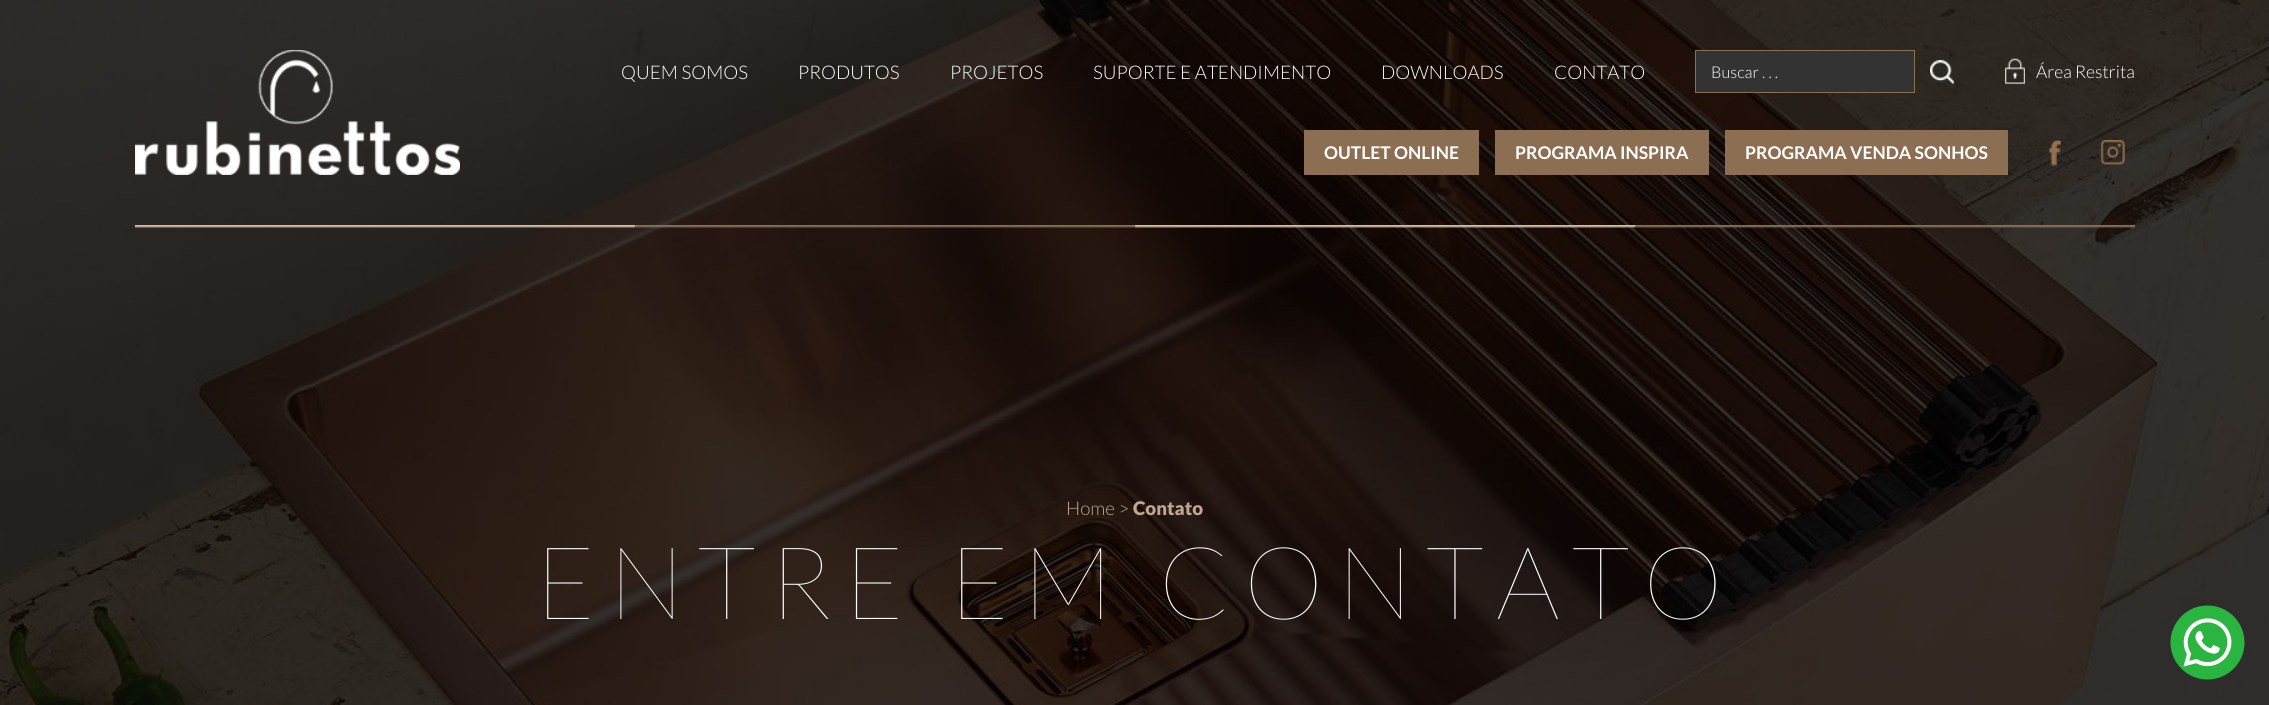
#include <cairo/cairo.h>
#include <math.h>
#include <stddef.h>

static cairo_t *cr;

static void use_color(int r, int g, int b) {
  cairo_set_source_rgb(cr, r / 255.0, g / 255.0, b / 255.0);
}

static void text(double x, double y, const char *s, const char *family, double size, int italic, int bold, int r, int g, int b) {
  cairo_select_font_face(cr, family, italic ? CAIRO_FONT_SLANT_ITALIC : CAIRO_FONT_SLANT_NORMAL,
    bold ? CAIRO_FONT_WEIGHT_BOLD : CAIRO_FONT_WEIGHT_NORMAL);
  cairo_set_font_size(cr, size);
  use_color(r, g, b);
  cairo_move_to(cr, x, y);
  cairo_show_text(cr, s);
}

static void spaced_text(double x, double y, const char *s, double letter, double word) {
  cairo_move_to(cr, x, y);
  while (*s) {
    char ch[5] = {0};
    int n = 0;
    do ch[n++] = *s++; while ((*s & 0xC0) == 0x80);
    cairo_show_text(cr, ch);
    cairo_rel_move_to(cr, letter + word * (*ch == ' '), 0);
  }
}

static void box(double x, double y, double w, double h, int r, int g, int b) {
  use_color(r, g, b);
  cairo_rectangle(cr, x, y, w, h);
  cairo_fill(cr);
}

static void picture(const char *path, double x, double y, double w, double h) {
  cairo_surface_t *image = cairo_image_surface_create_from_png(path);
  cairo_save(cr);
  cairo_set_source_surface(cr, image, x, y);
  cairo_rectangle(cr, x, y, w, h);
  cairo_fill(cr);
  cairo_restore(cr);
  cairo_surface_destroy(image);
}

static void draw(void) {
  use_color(255, 255, 255);
  cairo_paint(cr);
  picture("img_07.png", 0, 0, 2269, 705);
  picture("img_01.png", 135, 225, 2000, 3);
  picture("img_02.png", 135, 50, 325, 125);
  use_color(51, 51, 51);
  cairo_rectangle(cr, 1695.5, 50.5, 219, 42);
  cairo_fill_preserve(cr);
  use_color(140, 110, 82);
  cairo_set_line_width(cr, 1);
  cairo_stroke(cr);
  picture("img_03.png", 1930, 60, 24, 24);
  picture("img_04.png", 2005, 58, 20, 26);
  box(1304, 130, 175, 45, 140, 110, 82);
  box(1495, 130, 214, 45, 140, 110, 82);
  box(1725, 130, 283, 45, 140, 110, 82);
  picture("img_05.png", 2049, 140, 12, 26);
  picture("img_06.png", 2100, 140, 25, 25);
  picture("img_08.png", 2170, 605, 75, 75);
  text(621, 79, "QUEM SOMOS", "Lato Light", 18.75, 0, 0, 255, 255, 255);
  text(798, 79, "PRODUTOS", "Lato Light", 18.75, 0, 0, 255, 255, 255);
  text(950, 79, "PROJETOS", "Lato Light", 18.75, 0, 0, 255, 255, 255);
  text(1093, 79, "SUPORTE E ATENDIMENTO", "Lato Light", 18.75, 0, 0, 255, 255, 255);
  text(1381, 79, "DOWNLOADS", "Lato Light", 18.75, 0, 0, 255, 255, 255);
  text(1554, 79, "CONTATO", "Lato Light", 18.75, 0, 0, 255, 255, 255);
  text(1711, 78, "Buscar . . .", "Lato Light", 16.25, 0, 0, 255, 255, 255);
  text(2036, 78, "Área Restrita", "Lato Light", 17.5, 0, 0, 255, 255, 255);
  text(1324, 159, "OUTLET ONLINE", "Lato", 17.5, 0, 1, 255, 255, 255);
  text(1515, 159, "PROGRAMA INSPIRA", "Lato", 17.5, 0, 1, 255, 255, 255);
  text(1745, 159, "PROGRAMA VENDA SONHOS", "Lato", 17.5, 0, 1, 255, 255, 255);
  text(1066, 515, "Home >", "Lato Light", 18.75, 0, 0, 193, 167, 143);
  text(1133, 515, "Contato", "Lato Black", 18.75, 0, 0, 193, 167, 143);
  cairo_select_font_face(cr, "Lato Thin", CAIRO_FONT_SLANT_NORMAL, CAIRO_FONT_WEIGHT_NORMAL);
  cairo_set_font_size(cr, 101.25);
  use_color(255, 255, 255);
  spaced_text(535, 619, "ENTRE EM CONTATO", 12.5, 0);
}

int main(void) {
  cairo_surface_t *surface = cairo_image_surface_create(CAIRO_FORMAT_RGB24, 2269, 705);
  cr = cairo_create(surface);
  cairo_font_options_t *options = cairo_font_options_create();
  cairo_font_options_set_hint_metrics(options, CAIRO_HINT_METRICS_OFF);
  cairo_font_options_set_hint_style(options, CAIRO_HINT_STYLE_NONE);
  cairo_set_font_options(cr, options);
  cairo_set_miter_limit(cr, 4);
  draw();
  cairo_surface_write_to_png(surface, "out.png");
  cairo_font_options_destroy(options);
  cairo_destroy(cr);
  cairo_surface_destroy(surface);
  return 0;
}
